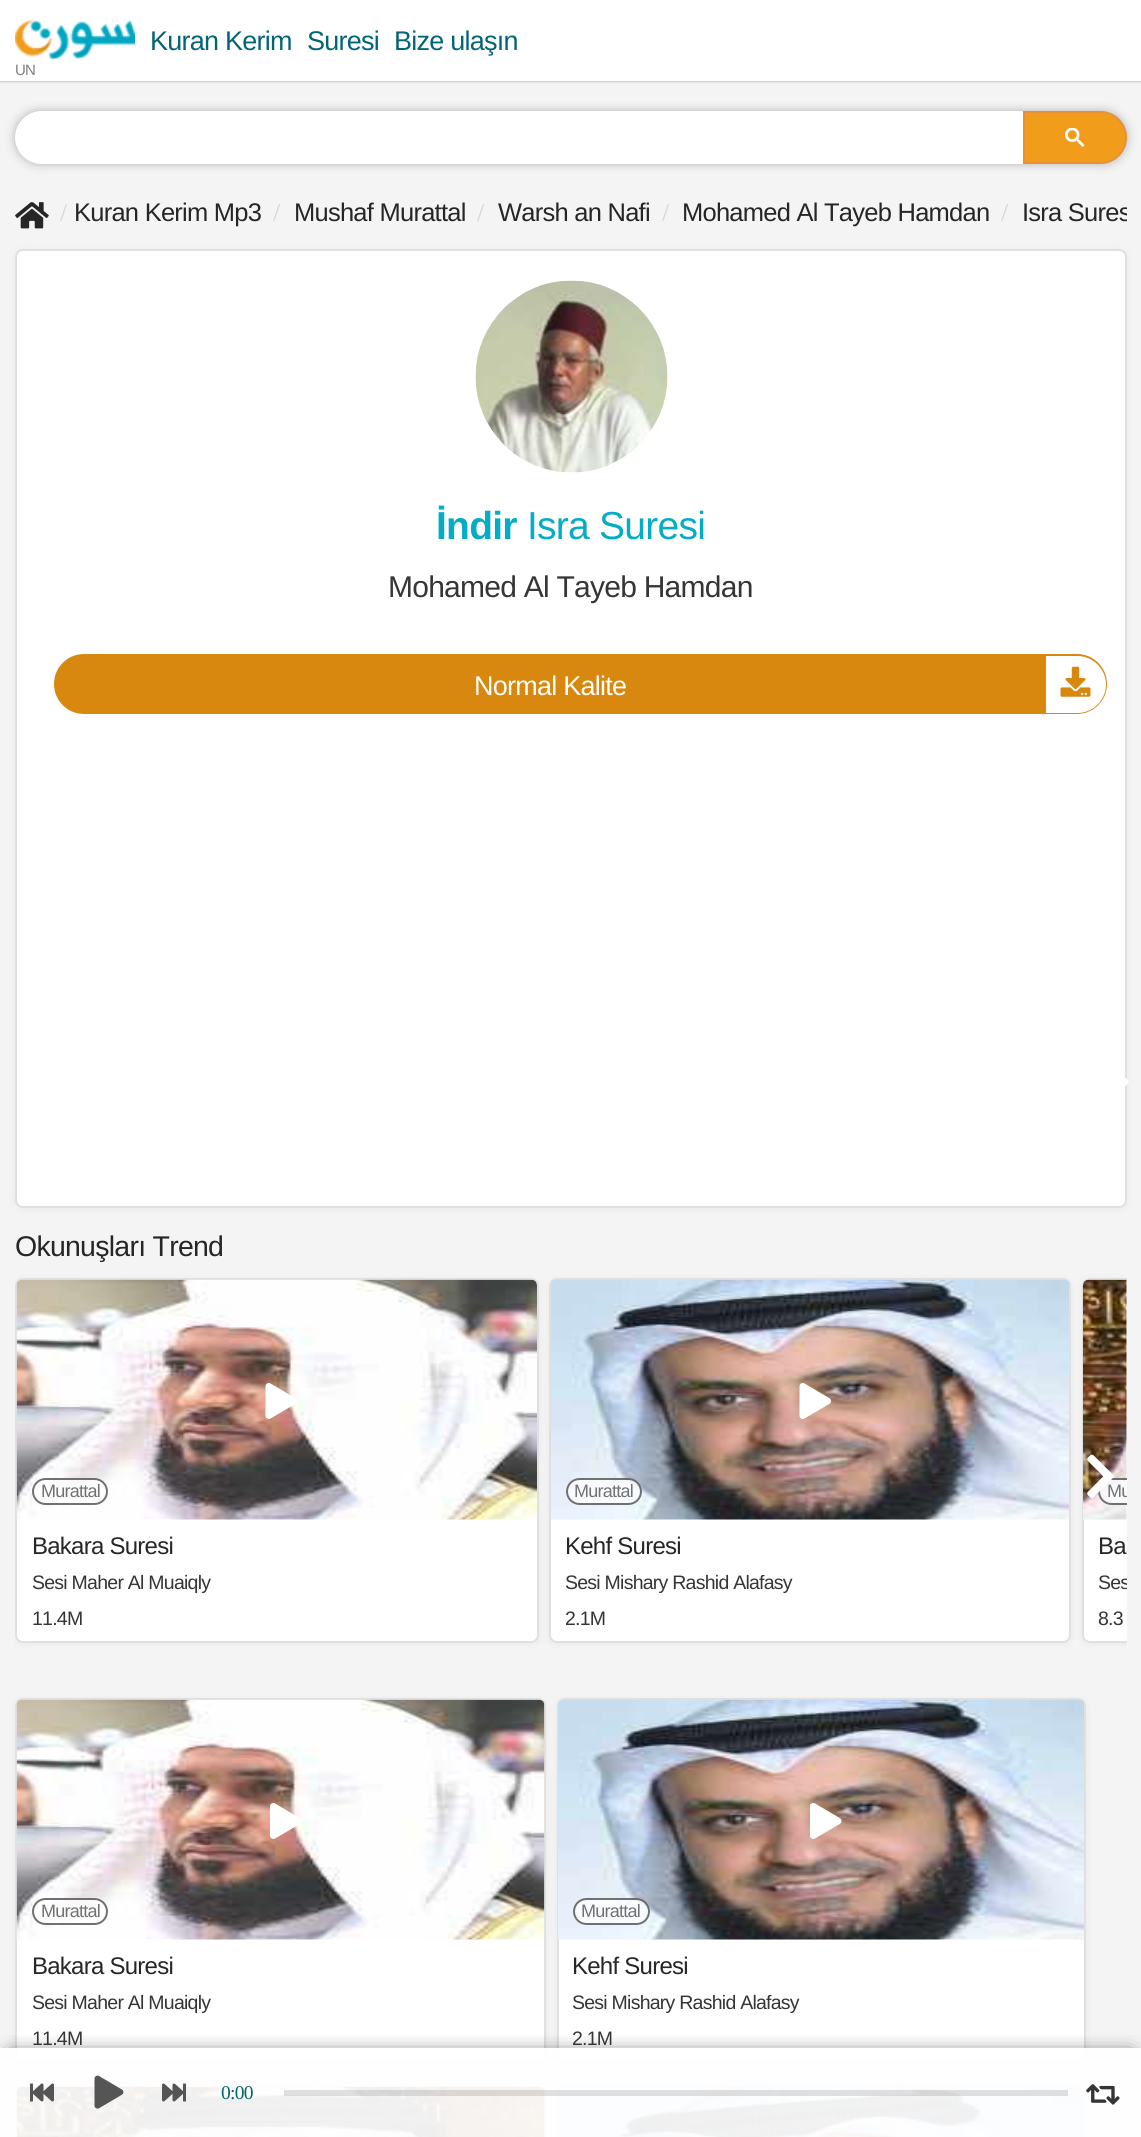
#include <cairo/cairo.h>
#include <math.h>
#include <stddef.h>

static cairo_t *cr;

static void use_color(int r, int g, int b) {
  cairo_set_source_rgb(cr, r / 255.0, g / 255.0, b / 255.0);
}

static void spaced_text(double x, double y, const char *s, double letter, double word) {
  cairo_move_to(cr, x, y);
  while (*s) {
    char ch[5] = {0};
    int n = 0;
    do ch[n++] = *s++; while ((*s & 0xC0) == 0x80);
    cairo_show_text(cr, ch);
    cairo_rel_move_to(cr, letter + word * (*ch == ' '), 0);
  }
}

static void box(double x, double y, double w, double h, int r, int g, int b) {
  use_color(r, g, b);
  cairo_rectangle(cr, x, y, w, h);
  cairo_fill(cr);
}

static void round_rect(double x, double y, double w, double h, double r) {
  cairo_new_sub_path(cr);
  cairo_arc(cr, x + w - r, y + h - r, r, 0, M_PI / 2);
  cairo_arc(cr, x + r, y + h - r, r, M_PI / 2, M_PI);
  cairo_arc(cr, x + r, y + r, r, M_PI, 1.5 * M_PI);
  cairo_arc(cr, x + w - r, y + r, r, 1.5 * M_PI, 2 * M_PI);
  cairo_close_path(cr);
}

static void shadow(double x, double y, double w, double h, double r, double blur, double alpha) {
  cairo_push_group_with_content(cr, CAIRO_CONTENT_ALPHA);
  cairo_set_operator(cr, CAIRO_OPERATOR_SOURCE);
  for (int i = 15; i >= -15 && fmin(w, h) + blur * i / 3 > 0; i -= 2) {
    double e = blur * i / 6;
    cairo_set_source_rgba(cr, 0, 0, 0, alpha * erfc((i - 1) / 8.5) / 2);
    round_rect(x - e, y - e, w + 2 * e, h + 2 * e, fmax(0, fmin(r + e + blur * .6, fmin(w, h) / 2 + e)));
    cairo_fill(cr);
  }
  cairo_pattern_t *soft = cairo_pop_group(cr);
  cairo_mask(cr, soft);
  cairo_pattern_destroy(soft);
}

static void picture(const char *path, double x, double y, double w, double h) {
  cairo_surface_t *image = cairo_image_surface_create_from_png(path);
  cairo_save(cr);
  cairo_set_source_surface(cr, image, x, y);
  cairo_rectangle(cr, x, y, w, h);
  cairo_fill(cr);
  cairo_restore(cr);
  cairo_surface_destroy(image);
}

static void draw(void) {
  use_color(244, 244, 244);
  cairo_paint(cr);
  use_color(0, 0, 0);
  shadow(0, 0, 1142, 81, 0, 2, 0.15);
  shadow(0, 0, 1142, 81, 0, 1, 0.25);
  box(0, 0, 1141, 81, 255, 255, 255);
  picture("img_01.png", 15, 19, 120, 41);
  use_color(0, 0, 0);
  shadow(23, 119, 1096, 37, 18.5, 7.5, 1);
  use_color(255, 255, 255);
  cairo_new_path(cr);
  cairo_move_to(cr, 41.5, 112);
  cairo_line_to(cr, 1022, 112);
  cairo_line_to(cr, 1022, 163);
  cairo_line_to(cr, 41.5, 163);
  cairo_curve_to(cr, 27.5, 163, 16, 151.5, 16, 137.5);
  cairo_curve_to(cr, 16, 123.5, 27.5, 112, 41.5, 112);
  cairo_close_path(cr);
  cairo_fill_preserve(cr);
  cairo_stroke(cr);
  use_color(242, 156, 28);
  cairo_new_path(cr);
  cairo_move_to(cr, 1024, 112);
  cairo_line_to(cr, 1100.5, 112);
  cairo_curve_to(cr, 1114.5, 112, 1126, 123.5, 1126, 137.5);
  cairo_curve_to(cr, 1126, 151.5, 1114.5, 163, 1100.5, 163);
  cairo_line_to(cr, 1024, 163);
  cairo_close_path(cr);
  cairo_fill_preserve(cr);
  use_color(230, 145, 56);
  cairo_stroke(cr);
  picture("img_02.png", 1065, 128, 20, 19);
  picture("img_03.png", 15, 202, 34, 27);
  use_color(0, 0, 0);
  shadow(15, 251, 1112, 958, 8, 4, 0.05);
  use_color(255, 255, 255);
  round_rect(16, 250, 1110, 957, 7);
  cairo_fill_preserve(cr);
  use_color(224, 224, 224);
  cairo_stroke(cr);
  picture("img_04.png", 475, 280, 193, 193);
  use_color(217, 136, 15);
  round_rect(54, 654, 1053, 60, 30);
  cairo_fill(cr);
  use_color(255, 255, 255);
  cairo_new_path(cr);
  cairo_move_to(cr, 1046, 656);
  cairo_line_to(cr, 1077.5, 656);
  cairo_curve_to(cr, 1093, 656, 1106, 669, 1106, 684.5);
  cairo_curve_to(cr, 1106, 700, 1093, 713, 1077.5, 713);
  cairo_line_to(cr, 1046, 713);
  cairo_close_path(cr);
  cairo_fill(cr);
  picture("img_05.png", 1060, 666, 31, 31);
  cairo_save(cr);
  cairo_rectangle(cr, 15, 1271, 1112, 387);
  cairo_clip(cr);
  use_color(0, 0, 0);
  shadow(15, 1280, 524, 364, 8, 4, 0.05);
  cairo_restore(cr);
  round_rect(16, 1279, 522, 363, 7);
  cairo_fill_preserve(cr);
  use_color(224, 224, 224);
  cairo_stroke(cr);
  picture("img_07.png", 16, 1279, 521, 241);
  picture("img_08.png", 265, 1383, 32, 36);
  cairo_set_source_rgba(cr, 1, 1, 1, 0.7);
  round_rect(32, 1478, 76, 27, 13.5);
  cairo_fill(cr);
  round_rect(33, 1479, 74, 25, 12.5);
  cairo_set_source_rgba(cr, 0.208, 0.208, 0.208, 0.7);
  cairo_stroke(cr);
  use_color(0, 0, 0);
  shadow(549, 1280, 522, 364, 8, 4, 0.05);
  use_color(255, 255, 255);
  round_rect(550, 1279, 520, 363, 7);
  cairo_fill_preserve(cr);
  use_color(224, 224, 224);
  cairo_stroke(cr);
  picture("img_09.png", 551, 1279, 518, 241);
  picture("img_10.png", 799, 1383, 32, 36);
  cairo_set_source_rgba(cr, 1, 1, 1, 0.7);
  round_rect(566, 1478, 76, 27, 13.5);
  cairo_fill(cr);
  round_rect(567, 1479, 74, 25, 12.5);
  cairo_set_source_rgba(cr, 0.208, 0.208, 0.208, 0.7);
  cairo_stroke(cr);
  cairo_save(cr);
  cairo_rectangle(cr, 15, 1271, 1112, 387);
  cairo_clip(cr);
  use_color(0, 0, 0);
  shadow(1082, 1280, 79, 364, 8, 4, 0.05);
  cairo_restore(cr);
  use_color(255, 255, 255);
  cairo_new_path(cr);
  cairo_move_to(cr, 1090, 1278);
  cairo_line_to(cr, 1127, 1278);
  cairo_line_to(cr, 1127, 1643);
  cairo_line_to(cr, 1090, 1643);
  cairo_curve_to(cr, 1085.5, 1643, 1082, 1639.5, 1082, 1635);
  cairo_line_to(cr, 1082, 1286);
  cairo_curve_to(cr, 1082, 1281.5, 1085.5, 1278, 1090, 1278);
  cairo_close_path(cr);
  cairo_fill(cr);
  cairo_save(cr);
  cairo_rectangle(cr, 15, 1271, 1112, 387);
  cairo_clip(cr);
  round_rect(1083, 1279, 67, 363, 7);
  use_color(224, 224, 224);
  cairo_stroke(cr);
  cairo_restore(cr);
  picture("img_11.png", 1083, 1279, 44, 241);
  cairo_set_source_rgba(cr, 1, 1, 1, 0.7);
  cairo_new_path(cr);
  cairo_move_to(cr, 1111.5, 1478);
  cairo_line_to(cr, 1127, 1478);
  cairo_line_to(cr, 1127, 1505);
  cairo_line_to(cr, 1111.5, 1505);
  cairo_curve_to(cr, 1104, 1505, 1098, 1499, 1098, 1491.5);
  cairo_curve_to(cr, 1098, 1484, 1104, 1478, 1111.5, 1478);
  cairo_close_path(cr);
  cairo_fill(cr);
  cairo_save(cr);
  cairo_rectangle(cr, 1083, 1280, 44, 240);
  cairo_clip(cr);
  round_rect(1099, 1479, 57, 25, 12.5);
  cairo_set_source_rgba(cr, 0.208, 0.208, 0.208, 0.7);
  cairo_stroke(cr);
  cairo_restore(cr);
  picture("img_12.png", 1125, 1077, 4, 9);
  use_color(0, 0, 0);
  shadow(15, 1700, 531, 364, 8, 4, 0.05);
  use_color(255, 255, 255);
  round_rect(16, 1699, 529, 363, 7);
  cairo_fill_preserve(cr);
  use_color(224, 224, 224);
  cairo_stroke(cr);
  picture("img_13.png", 16, 1699, 529, 241);
  picture("img_14.png", 270, 1803, 32, 36);
  cairo_set_source_rgba(cr, 1, 1, 1, 0.7);
  round_rect(32, 1898, 76, 27, 13.5);
  cairo_fill(cr);
  round_rect(33, 1899, 74, 25, 12.5);
  cairo_set_source_rgba(cr, 0.208, 0.208, 0.208, 0.7);
  cairo_stroke(cr);
  use_color(0, 0, 0);
  shadow(557, 1700, 529, 364, 8, 4, 0.05);
  use_color(255, 255, 255);
  round_rect(558, 1699, 527, 363, 7);
  cairo_fill_preserve(cr);
  use_color(224, 224, 224);
  cairo_stroke(cr);
  picture("img_15.png", 558, 1699, 526, 241);
  picture("img_16.png", 810, 1803, 32, 36);
  cairo_set_source_rgba(cr, 1, 1, 1, 0.7);
  round_rect(573, 1898, 77, 27, 13.5);
  cairo_fill(cr);
  round_rect(574, 1899, 75, 25, 12.5);
  cairo_set_source_rgba(cr, 0.208, 0.208, 0.208, 0.7);
  cairo_stroke(cr);
  use_color(0, 0, 0);
  shadow(15, 2087, 531, 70, 8, 4, 0.05);
  round_rect(16, 2086, 529, 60, 7);
  use_color(224, 224, 224);
  cairo_stroke(cr);
  picture("img_17.png", 16, 2086, 529, 51);
  use_color(0, 0, 0);
  shadow(557, 2087, 529, 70, 8, 4, 0.05);
  round_rect(558, 2086, 527, 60, 7);
  use_color(224, 224, 224);
  cairo_stroke(cr);
  picture("img_18.png", 558, 2086, 526, 51);
  cairo_save(cr);
  cairo_rectangle(cr, 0, 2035, 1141, 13);
  cairo_clip(cr);
  use_color(0, 0, 0);
  shadow(11, 2058, 1120, 69, 0, 11, 1);
  cairo_restore(cr);
  cairo_set_source_rgba(cr, 1, 1, 1, 0.93);
  cairo_rectangle(cr, 0, 2048, 1141, 89);
  cairo_fill(cr);
  picture("img_19.png", 30, 2083, 24, 19);
  picture("img_20.png", 94, 2075, 30, 34);
  picture("img_21.png", 162, 2083, 24, 19);
  cairo_set_source_rgba(cr, 0, 0, 0, 0.12);
  cairo_rectangle(cr, 284, 2090, 784, 6);
  cairo_fill(cr);
  picture("img_22.png", 1086, 2084, 34, 21);
  cairo_select_font_face(cr, "Liberation Sans", CAIRO_FONT_SLANT_NORMAL, CAIRO_FONT_WEIGHT_NORMAL);
  cairo_set_font_size(cr, 27);
  use_color(2, 101, 117);
  spaced_text(150, 50, "Kuran Kerim", -0.75, 0);
  spaced_text(307, 50, "Suresi", -0.75, 0);
  spaced_text(394, 50, "Bize ulaşın", -0.75, 0);
  cairo_set_font_size(cr, 15);
  use_color(128, 128, 128);
  spaced_text(15, 75, "UN", -0.75, 0);
  cairo_select_font_face(cr, "Liberation Serif", CAIRO_FONT_SLANT_NORMAL, CAIRO_FONT_WEIGHT_NORMAL);
  cairo_set_font_size(cr, 25.5);
  use_color(212, 212, 212);
  spaced_text(60, 221, "/", -0.75, 0);
  cairo_select_font_face(cr, "Liberation Sans", CAIRO_FONT_SLANT_NORMAL, CAIRO_FONT_WEIGHT_NORMAL);
  use_color(38, 38, 38);
  spaced_text(74, 221, "Kuran Kerim Mp3", -0.75, 0);
  cairo_select_font_face(cr, "Liberation Serif", CAIRO_FONT_SLANT_NORMAL, CAIRO_FONT_WEIGHT_NORMAL);
  use_color(212, 212, 212);
  spaced_text(273, 221, "/", -0.75, 0);
  cairo_select_font_face(cr, "Liberation Sans", CAIRO_FONT_SLANT_NORMAL, CAIRO_FONT_WEIGHT_NORMAL);
  use_color(38, 38, 38);
  spaced_text(294, 221, "Mushaf Murattal", -0.75, 0);
  cairo_select_font_face(cr, "Liberation Serif", CAIRO_FONT_SLANT_NORMAL, CAIRO_FONT_WEIGHT_NORMAL);
  use_color(212, 212, 212);
  spaced_text(477, 221, "/", -0.75, 0);
  cairo_select_font_face(cr, "Liberation Sans", CAIRO_FONT_SLANT_NORMAL, CAIRO_FONT_WEIGHT_NORMAL);
  use_color(38, 38, 38);
  spaced_text(498, 221, "Warsh an Nafi", -0.75, 0);
  cairo_select_font_face(cr, "Liberation Serif", CAIRO_FONT_SLANT_NORMAL, CAIRO_FONT_WEIGHT_NORMAL);
  use_color(212, 212, 212);
  spaced_text(662, 221, "/", -0.75, 0);
  cairo_select_font_face(cr, "Liberation Sans", CAIRO_FONT_SLANT_NORMAL, CAIRO_FONT_WEIGHT_NORMAL);
  use_color(38, 38, 38);
  spaced_text(682, 221, "Mohamed Al Tayeb Hamdan", -0.75, 0);
  cairo_select_font_face(cr, "Liberation Serif", CAIRO_FONT_SLANT_NORMAL, CAIRO_FONT_WEIGHT_NORMAL);
  use_color(212, 212, 212);
  spaced_text(1001, 221, "/", -0.75, 0);
  cairo_save(cr);
  cairo_rectangle(cr, 15, 188, 1112, 51);
  cairo_clip(cr);
  cairo_select_font_face(cr, "Liberation Sans", CAIRO_FONT_SLANT_NORMAL, CAIRO_FONT_WEIGHT_NORMAL);
  use_color(38, 38, 38);
  spaced_text(1022, 221, "Isra Sures", -0.75, 0);
  cairo_restore(cr);
  cairo_select_font_face(cr, "Liberation Sans", CAIRO_FONT_SLANT_NORMAL, CAIRO_FONT_WEIGHT_BOLD);
  cairo_set_font_size(cr, 39);
  use_color(4, 172, 198);
  spaced_text(436, 539, "İndir", -0.75, 0);
  cairo_select_font_face(cr, "Liberation Sans", CAIRO_FONT_SLANT_NORMAL, CAIRO_FONT_WEIGHT_NORMAL);
  spaced_text(527, 539, "Isra Suresi", -0.75, 0);
  cairo_set_font_size(cr, 30);
  use_color(53, 53, 53);
  spaced_text(388, 597, "Mohamed Al Tayeb Hamdan", -0.75, 0);
  cairo_set_font_size(cr, 27);
  use_color(255, 255, 255);
  spaced_text(474, 695, "Normal Kalite", -0.75, 0);
  cairo_set_font_size(cr, 28.5);
  use_color(38, 38, 38);
  spaced_text(15, 1256, "Okunuşları Trend", -0.75, 0);
  cairo_set_font_size(cr, 18);
  use_color(113, 113, 113);
  spaced_text(41, 1497, "Murattal", -0.75, 0);
  cairo_set_font_size(cr, 24);
  use_color(38, 38, 38);
  spaced_text(32, 1554, "Bakara Suresi", -0.75, 0);
  cairo_set_font_size(cr, 19.5);
  use_color(53, 53, 53);
  spaced_text(32, 1589, "Sesi Maher Al Muaiqly", -0.75, 0);
  spaced_text(32, 1625, "11.4M", -0.75, 0);
  cairo_set_font_size(cr, 18);
  use_color(113, 113, 113);
  spaced_text(574, 1497, "Murattal", -0.75, 0);
  cairo_set_font_size(cr, 24);
  use_color(38, 38, 38);
  spaced_text(565, 1554, "Kehf Suresi", -0.75, 0);
  cairo_set_font_size(cr, 19.5);
  use_color(53, 53, 53);
  spaced_text(565, 1589, "Sesi Mishary Rashid Alafasy", -0.75, 0);
  spaced_text(565, 1625, "2.1M", -0.75, 0);
  cairo_save(cr);
  cairo_rectangle(cr, 1083, 1280, 44, 240);
  cairo_clip(cr);
  cairo_set_font_size(cr, 18);
  use_color(113, 113, 113);
  spaced_text(1107, 1497, "Mu", -0.75, 0);
  cairo_restore(cr);
  picture("img_06.png", 1087, 1454, 27, 44);
  cairo_set_font_size(cr, 24);
  use_color(38, 38, 38);
  spaced_text(1098, 1554, "Ba", -0.75, 0);
  cairo_save(cr);
  cairo_rectangle(cr, 1098, 1571, 29, 22);
  cairo_clip(cr);
  cairo_set_font_size(cr, 19.5);
  use_color(53, 53, 53);
  spaced_text(1098, 1589, "Ses", -0.75, 0);
  cairo_restore(cr);
  cairo_set_font_size(cr, 19.5);
  use_color(53, 53, 53);
  spaced_text(1098, 1625, "8.3", -0.75, 0);
  cairo_set_font_size(cr, 18);
  use_color(113, 113, 113);
  spaced_text(41, 1917, "Murattal", -0.75, 0);
  cairo_set_font_size(cr, 24);
  use_color(38, 38, 38);
  spaced_text(32, 1974, "Bakara Suresi", -0.75, 0);
  cairo_set_font_size(cr, 19.5);
  use_color(53, 53, 53);
  spaced_text(32, 2009, "Sesi Maher Al Muaiqly", -0.75, 0);
  spaced_text(32, 2045, "11.4M", -0.75, 0);
  cairo_set_font_size(cr, 18);
  use_color(113, 113, 113);
  spaced_text(581, 1917, "Murattal", -0.75, 0);
  cairo_set_font_size(cr, 24);
  use_color(38, 38, 38);
  spaced_text(572, 1974, "Kehf Suresi", -0.75, 0);
  cairo_set_font_size(cr, 19.5);
  use_color(53, 53, 53);
  spaced_text(572, 2009, "Sesi Mishary Rashid Alafasy", -0.75, 0);
  spaced_text(572, 2045, "2.1M", -0.75, 0);
  cairo_select_font_face(cr, "Liberation Serif", CAIRO_FONT_SLANT_NORMAL, CAIRO_FONT_WEIGHT_NORMAL);
  use_color(2, 101, 117);
  spaced_text(221, 2099, "0:00", -0.75, 0);
}

int main(void) {
  cairo_surface_t *surface = cairo_image_surface_create(CAIRO_FORMAT_RGB24, 1141, 2137);
  cr = cairo_create(surface);
  cairo_font_options_t *options = cairo_font_options_create();
  cairo_font_options_set_hint_metrics(options, CAIRO_HINT_METRICS_OFF);
  cairo_font_options_set_hint_style(options, CAIRO_HINT_STYLE_NONE);
  cairo_set_font_options(cr, options);
  cairo_set_miter_limit(cr, 4);
  draw();
  cairo_surface_write_to_png(surface, "out.png");
  cairo_font_options_destroy(options);
  cairo_destroy(cr);
  cairo_surface_destroy(surface);
  return 0;
}
